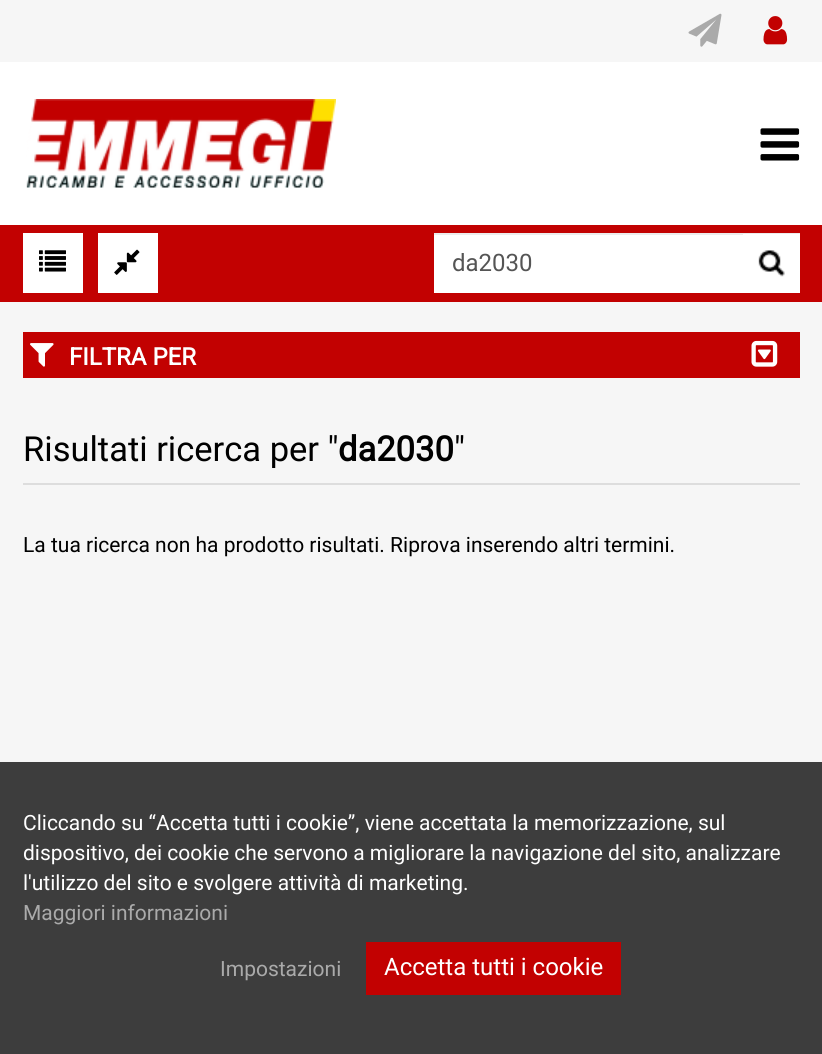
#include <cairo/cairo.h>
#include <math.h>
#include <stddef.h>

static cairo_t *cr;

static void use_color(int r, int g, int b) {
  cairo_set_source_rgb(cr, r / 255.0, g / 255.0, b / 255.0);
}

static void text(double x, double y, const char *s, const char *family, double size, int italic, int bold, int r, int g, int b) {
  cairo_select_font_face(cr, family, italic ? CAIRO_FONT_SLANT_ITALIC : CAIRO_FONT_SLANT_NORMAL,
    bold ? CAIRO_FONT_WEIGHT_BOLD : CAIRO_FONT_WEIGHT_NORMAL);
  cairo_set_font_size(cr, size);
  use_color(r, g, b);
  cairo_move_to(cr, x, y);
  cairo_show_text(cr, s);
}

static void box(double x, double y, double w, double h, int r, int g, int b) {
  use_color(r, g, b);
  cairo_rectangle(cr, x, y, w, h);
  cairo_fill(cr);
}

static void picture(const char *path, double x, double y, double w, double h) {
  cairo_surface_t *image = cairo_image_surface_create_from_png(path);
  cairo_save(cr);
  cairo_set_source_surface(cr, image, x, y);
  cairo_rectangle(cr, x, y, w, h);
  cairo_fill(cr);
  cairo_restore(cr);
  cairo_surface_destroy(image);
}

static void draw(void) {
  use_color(255, 255, 255);
  cairo_paint(cr);
  box(0, 0, 822, 62, 246, 246, 246);
  picture("img_01.png", 688, 13, 34, 34);
  picture("img_02.png", 763, 16, 25, 29);
  picture("img_03.png", 26, 99, 310, 89);
  picture("img_04.png", 760, 128, 40, 33);
  box(0, 225, 822, 77, 194, 1, 1);
  box(23, 233, 60, 60, 255, 255, 255);
  picture("img_05.png", 39, 250, 27, 22);
  box(98, 233, 60, 60, 255, 255, 255);
  picture("img_06.png", 114, 249, 26, 26);
  box(434, 235, 366, 58, 255, 255, 255);
  box(434, 233, 366, 2, 236, 236, 236);
  box(743, 234, 57, 1, 255, 255, 255);
  picture("img_07.png", 758, 250, 27, 27);
  box(0, 302, 822, 460, 246, 246, 246);
  box(23, 332, 777, 46, 194, 1, 1);
  picture("img_08.png", 30, 343, 24, 24);
  picture("img_09.png", 751, 340, 27, 27);
  box(23, 483, 777, 2, 221, 221, 221);
  box(0, 762, 822, 292, 61, 61, 61);
  box(366, 942, 255, 53, 194, 1, 1);
  text(452, 271, "da2030", "Roboto", 24, 0, 0, 85, 85, 85);
  text(69, 365, "FILTRA PER", "Roboto", 24, 0, 1, 255, 255, 255);
  text(23, 461, "Risultati ricerca per \"", "Roboto", 34.5, 0, 0, 0, 0, 0);
  text(338, 461, "da2030", "Roboto", 34.5, 0, 1, 0, 0, 0);
  text(454, 461, "\"", "Roboto", 34.5, 0, 0, 0, 0, 0);
  text(23, 552, "La tua ricerca non ha prodotto risultati. Riprova inserendo altri termini.", "Roboto", 21, 0, 0, 0, 0, 0);
  text(23, 830, "Cliccando su “Accetta tutti i cookie”, viene accettata la memorizzazione, sul", "Roboto", 21, 0, 0, 255, 255, 255);
  text(23, 860, "dispositivo, dei cookie che servono a migliorare la navigazione del sito, analizzare", "Roboto", 21, 0, 0, 255, 255, 255);
  text(23, 890, "l'utilizzo del sito e svolgere attività di marketing.", "Roboto", 21, 0, 0, 255, 255, 255);
  text(23, 920, "Maggiori informazioni", "Roboto", 21, 0, 0, 170, 170, 170);
  text(220, 976, "Impostazioni", "Roboto", 21, 0, 0, 170, 170, 170);
  text(384, 975, "Accetta tutti i cookie", "Roboto", 24, 0, 0, 255, 255, 255);
}

int main(void) {
  cairo_surface_t *surface = cairo_image_surface_create(CAIRO_FORMAT_RGB24, 822, 1054);
  cr = cairo_create(surface);
  cairo_font_options_t *options = cairo_font_options_create();
  cairo_font_options_set_hint_metrics(options, CAIRO_HINT_METRICS_OFF);
  cairo_font_options_set_hint_style(options, CAIRO_HINT_STYLE_NONE);
  cairo_set_font_options(cr, options);
  cairo_set_miter_limit(cr, 4);
  draw();
  cairo_surface_write_to_png(surface, "out.png");
  cairo_font_options_destroy(options);
  cairo_destroy(cr);
  cairo_surface_destroy(surface);
  return 0;
}
